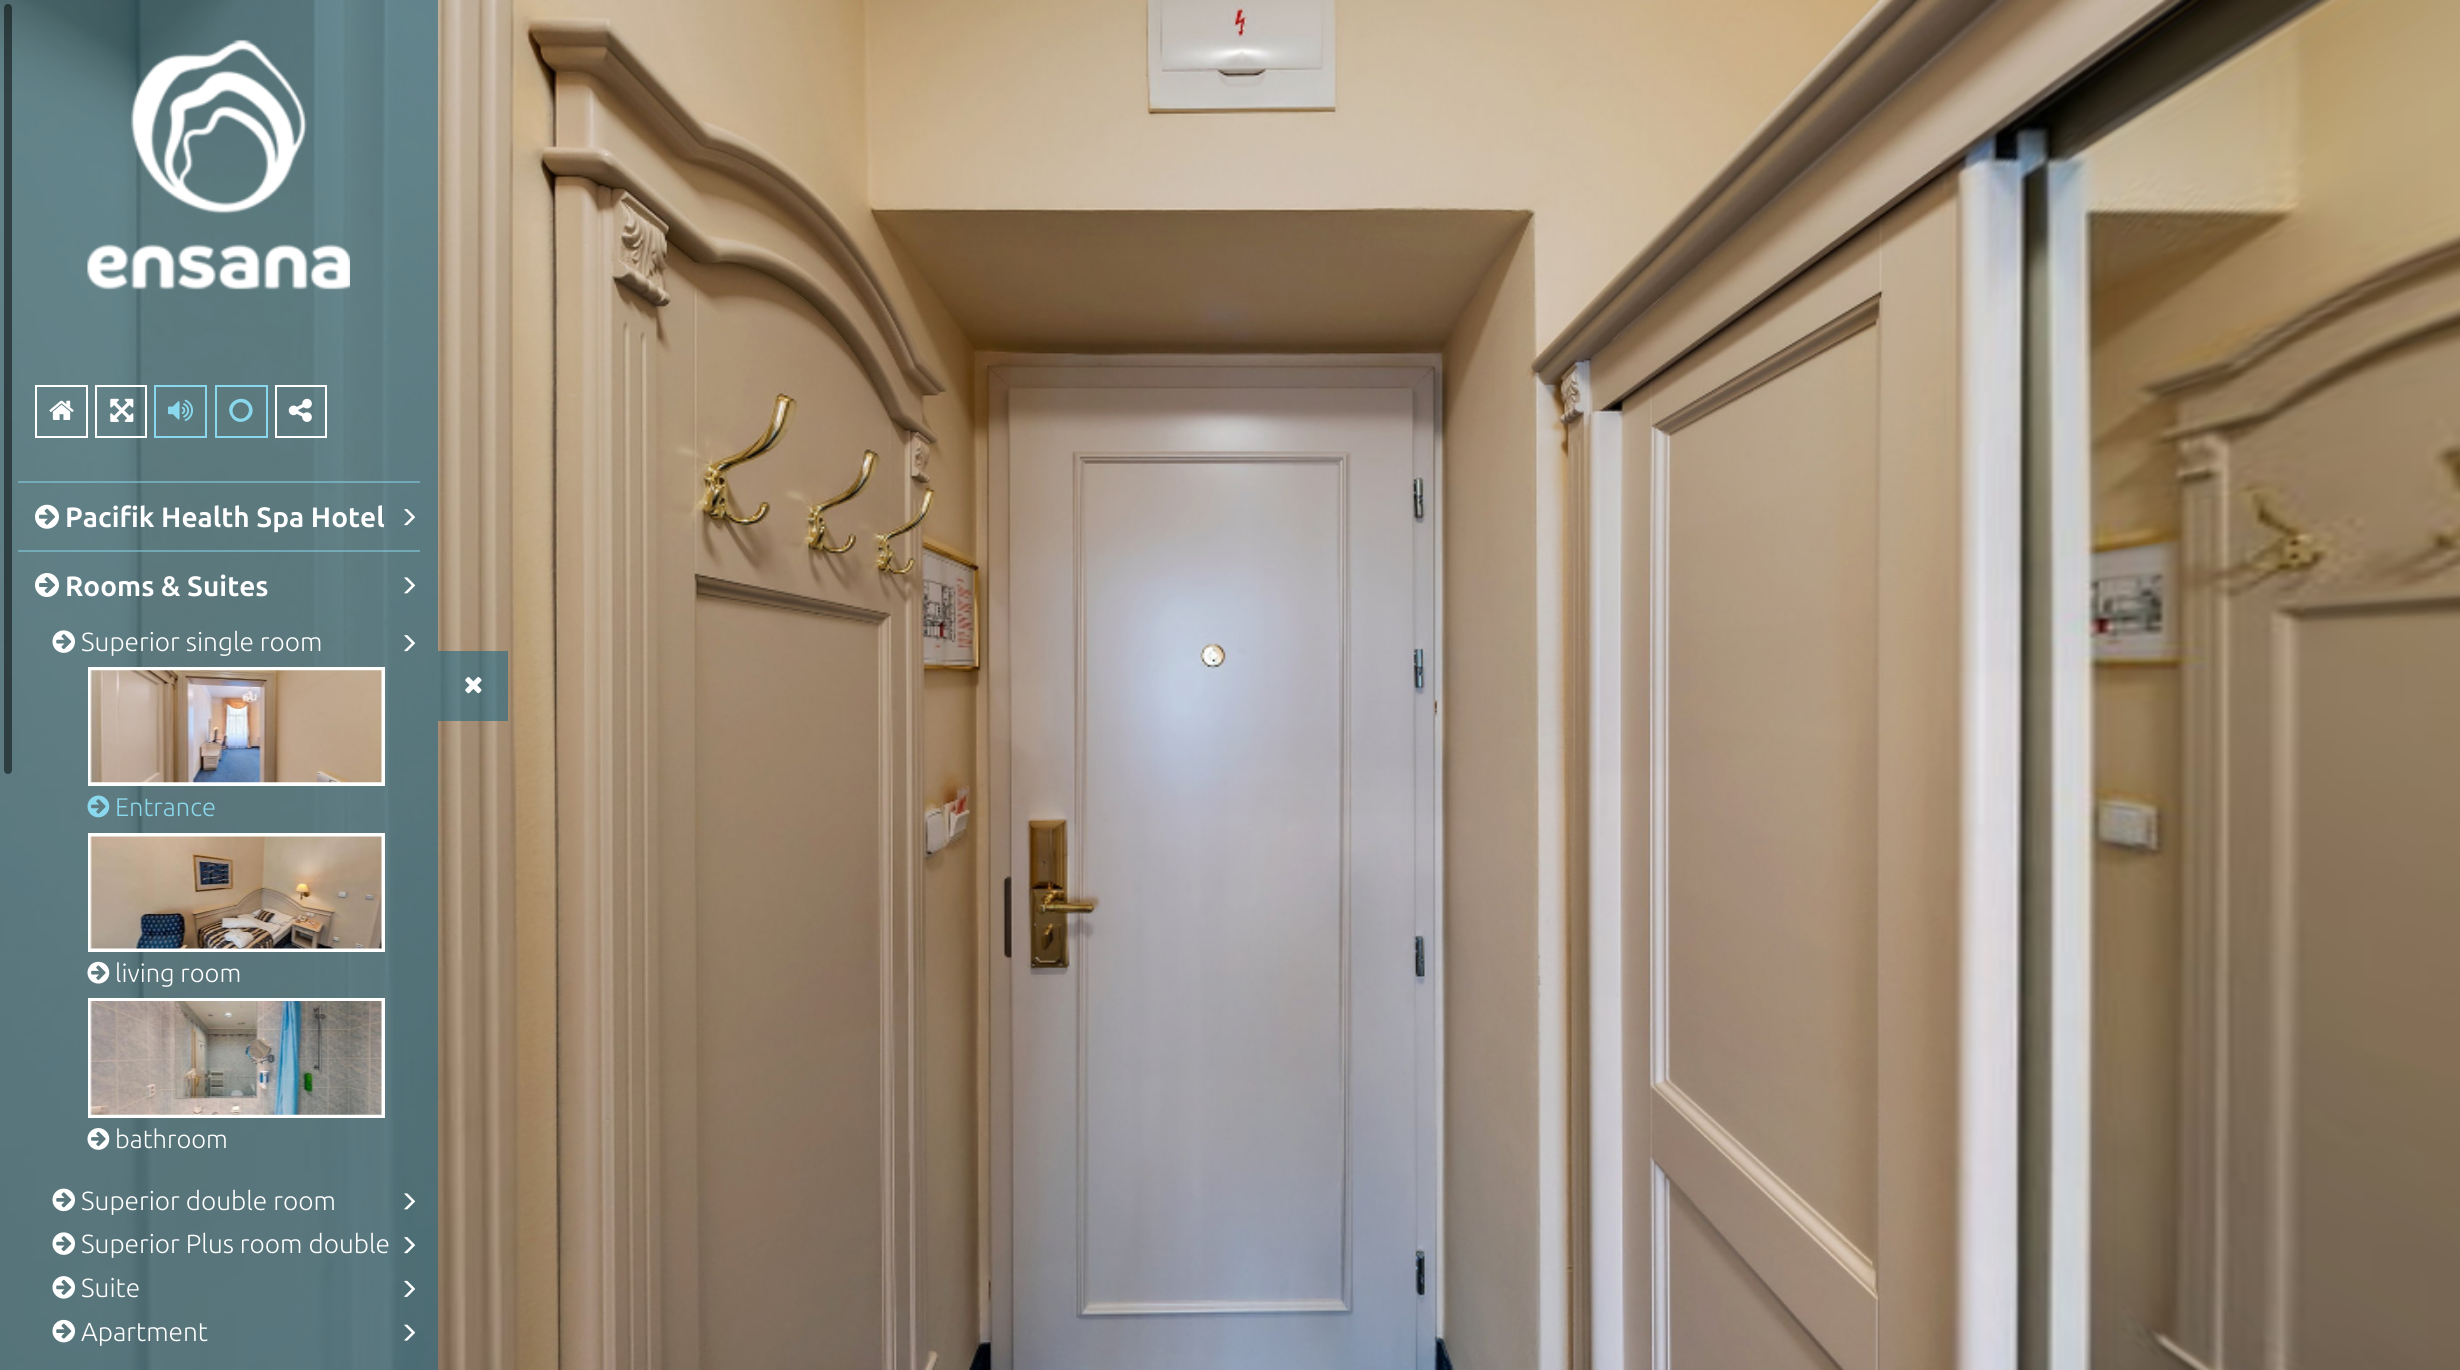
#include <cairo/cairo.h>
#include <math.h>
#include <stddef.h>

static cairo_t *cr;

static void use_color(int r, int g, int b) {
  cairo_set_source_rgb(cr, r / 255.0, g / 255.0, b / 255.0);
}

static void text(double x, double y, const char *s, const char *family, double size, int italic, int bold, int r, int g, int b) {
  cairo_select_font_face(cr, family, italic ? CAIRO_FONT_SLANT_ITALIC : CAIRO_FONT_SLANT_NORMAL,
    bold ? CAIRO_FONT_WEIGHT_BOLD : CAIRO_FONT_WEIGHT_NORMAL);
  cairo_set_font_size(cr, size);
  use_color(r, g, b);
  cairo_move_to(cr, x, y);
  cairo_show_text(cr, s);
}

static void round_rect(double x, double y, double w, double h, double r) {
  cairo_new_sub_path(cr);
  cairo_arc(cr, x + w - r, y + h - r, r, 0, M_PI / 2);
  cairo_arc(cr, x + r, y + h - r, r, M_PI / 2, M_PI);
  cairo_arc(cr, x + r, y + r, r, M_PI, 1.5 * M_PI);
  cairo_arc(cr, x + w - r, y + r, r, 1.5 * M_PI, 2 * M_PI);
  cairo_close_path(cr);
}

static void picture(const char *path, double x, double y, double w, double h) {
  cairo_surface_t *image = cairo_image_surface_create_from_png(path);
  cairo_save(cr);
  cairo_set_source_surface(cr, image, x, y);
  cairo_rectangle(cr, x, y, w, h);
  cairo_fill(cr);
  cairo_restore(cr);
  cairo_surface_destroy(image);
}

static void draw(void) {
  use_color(255, 255, 255);
  cairo_paint(cr);
  picture("img_01.png", 0, 0, 2460, 1370);
  cairo_set_source_rgba(cr, 0.149, 0.404, 0.51, 0.6);
  cairo_rectangle(cr, 0, 0, 438, 1370);
  cairo_fill(cr);
  cairo_set_source_rgba(cr, 0, 0, 0, 0.5);
  round_rect(4, 4, 8, 770, 4);
  cairo_fill(cr);
  picture("img_02.png", 87, 39, 263, 251);
  cairo_rectangle(cr, 36, 386, 51, 51);
  use_color(255, 255, 255);
  cairo_stroke(cr);
  picture("img_03.png", 49, 400, 25, 20);
  cairo_rectangle(cr, 96, 386, 50, 51);
  cairo_stroke(cr);
  picture("img_04.png", 110, 398, 24, 24);
  cairo_rectangle(cr, 155, 386, 51, 51);
  use_color(138, 216, 237);
  cairo_stroke(cr);
  picture("img_05.png", 168, 399, 25, 22);
  cairo_rectangle(cr, 216, 386, 51, 51);
  cairo_stroke(cr);
  cairo_new_path(cr);
  cairo_move_to(cr, 245, 403.5);
  cairo_curve_to(cr, 235.5, 398, 227.5, 412, 236.5, 417.5);
  cairo_curve_to(cr, 246, 423, 254, 408.5, 245, 403.5);
  cairo_close_path(cr);
  cairo_move_to(cr, 251, 404.5);
  cairo_curve_to(cr, 258.5, 417.5, 238.5, 429.5, 231, 416);
  cairo_curve_to(cr, 223, 403, 243, 391.5, 251, 404.5);
  cairo_close_path(cr);
  cairo_fill(cr);
  cairo_rectangle(cr, 276, 386, 50, 51);
  use_color(255, 255, 255);
  cairo_stroke(cr);
  picture("img_06.png", 288, 398, 24, 24);
  cairo_set_source_rgba(cr, 0.541, 0.847, 0.929, 0.5);
  cairo_rectangle(cr, 18, 481, 402, 2);
  cairo_fill(cr);
  picture("img_07.png", 35, 504, 24, 25);
  picture("img_08.png", 404, 509, 12, 17);
  cairo_rectangle(cr, 18, 550, 402, 2);
  cairo_fill(cr);
  picture("img_09.png", 35, 573, 24, 24);
  picture("img_10.png", 404, 577, 12, 17);
  picture("img_11.png", 52, 630, 23, 23);
  picture("img_12.png", 404, 635, 12, 17);
  cairo_rectangle(cr, 90, 669, 293, 115);
  use_color(255, 255, 255);
  cairo_set_line_width(cr, 4);
  cairo_stroke(cr);
  picture("img_13.png", 90, 670, 292, 113);
  picture("img_14.png", 87, 795, 23, 23);
  cairo_rectangle(cr, 90, 835, 293, 115);
  cairo_stroke(cr);
  picture("img_15.png", 90, 836, 292, 113);
  picture("img_16.png", 87, 961, 23, 23);
  cairo_rectangle(cr, 90, 1000, 293, 116);
  cairo_stroke(cr);
  picture("img_17.png", 90, 1001, 292, 114);
  picture("img_18.png", 87, 1128, 23, 22);
  picture("img_19.png", 52, 1188, 23, 24);
  picture("img_20.png", 404, 1193, 12, 17);
  picture("img_21.png", 52, 1232, 23, 23);
  picture("img_22.png", 404, 1237, 12, 17);
  picture("img_23.png", 52, 1276, 23, 23);
  picture("img_24.png", 404, 1280, 12, 17);
  picture("img_25.png", 52, 1319, 23, 24);
  picture("img_26.png", 404, 1324, 12, 17);
  cairo_set_source_rgba(cr, 0.149, 0.404, 0.51, 0.6);
  cairo_rectangle(cr, 438, 651, 70, 70);
  cairo_fill(cr);
  picture("img_27.png", 465, 677, 17, 17);
  text(65, 527, "Pacifik Health Spa Hotel", "Ubuntu", 28, 0, 1, 255, 255, 255);
  text(65, 596, "Rooms & Suites", "Ubuntu", 28, 0, 1, 255, 255, 255);
  text(81, 651, "Superior single room", "Ubuntu Light", 26.25, 0, 0, 255, 255, 255);
  text(115, 816, "Entrance", "Ubuntu Light", 25.5, 0, 0, 138, 216, 237);
  text(115, 982, "living room", "Ubuntu Light", 25.5, 0, 0, 255, 255, 255);
  text(115, 1148, "bathroom", "Ubuntu Light", 25.5, 0, 0, 255, 255, 255);
  text(81, 1210, "Superior double room", "Ubuntu Light", 26.25, 0, 0, 255, 255, 255);
  text(81, 1253, "Superior Plus room double", "Ubuntu Light", 26.25, 0, 0, 255, 255, 255);
  text(81, 1297, "Suite", "Ubuntu Light", 26.25, 0, 0, 255, 255, 255);
  text(81, 1341, "Apartment", "Ubuntu Light", 26.25, 0, 0, 255, 255, 255);
}

int main(void) {
  cairo_surface_t *surface = cairo_image_surface_create(CAIRO_FORMAT_RGB24, 2460, 1370);
  cr = cairo_create(surface);
  cairo_font_options_t *options = cairo_font_options_create();
  cairo_font_options_set_hint_metrics(options, CAIRO_HINT_METRICS_OFF);
  cairo_font_options_set_hint_style(options, CAIRO_HINT_STYLE_NONE);
  cairo_set_font_options(cr, options);
  cairo_set_miter_limit(cr, 4);
  draw();
  cairo_surface_write_to_png(surface, "out.png");
  cairo_font_options_destroy(options);
  cairo_destroy(cr);
  cairo_surface_destroy(surface);
  return 0;
}
